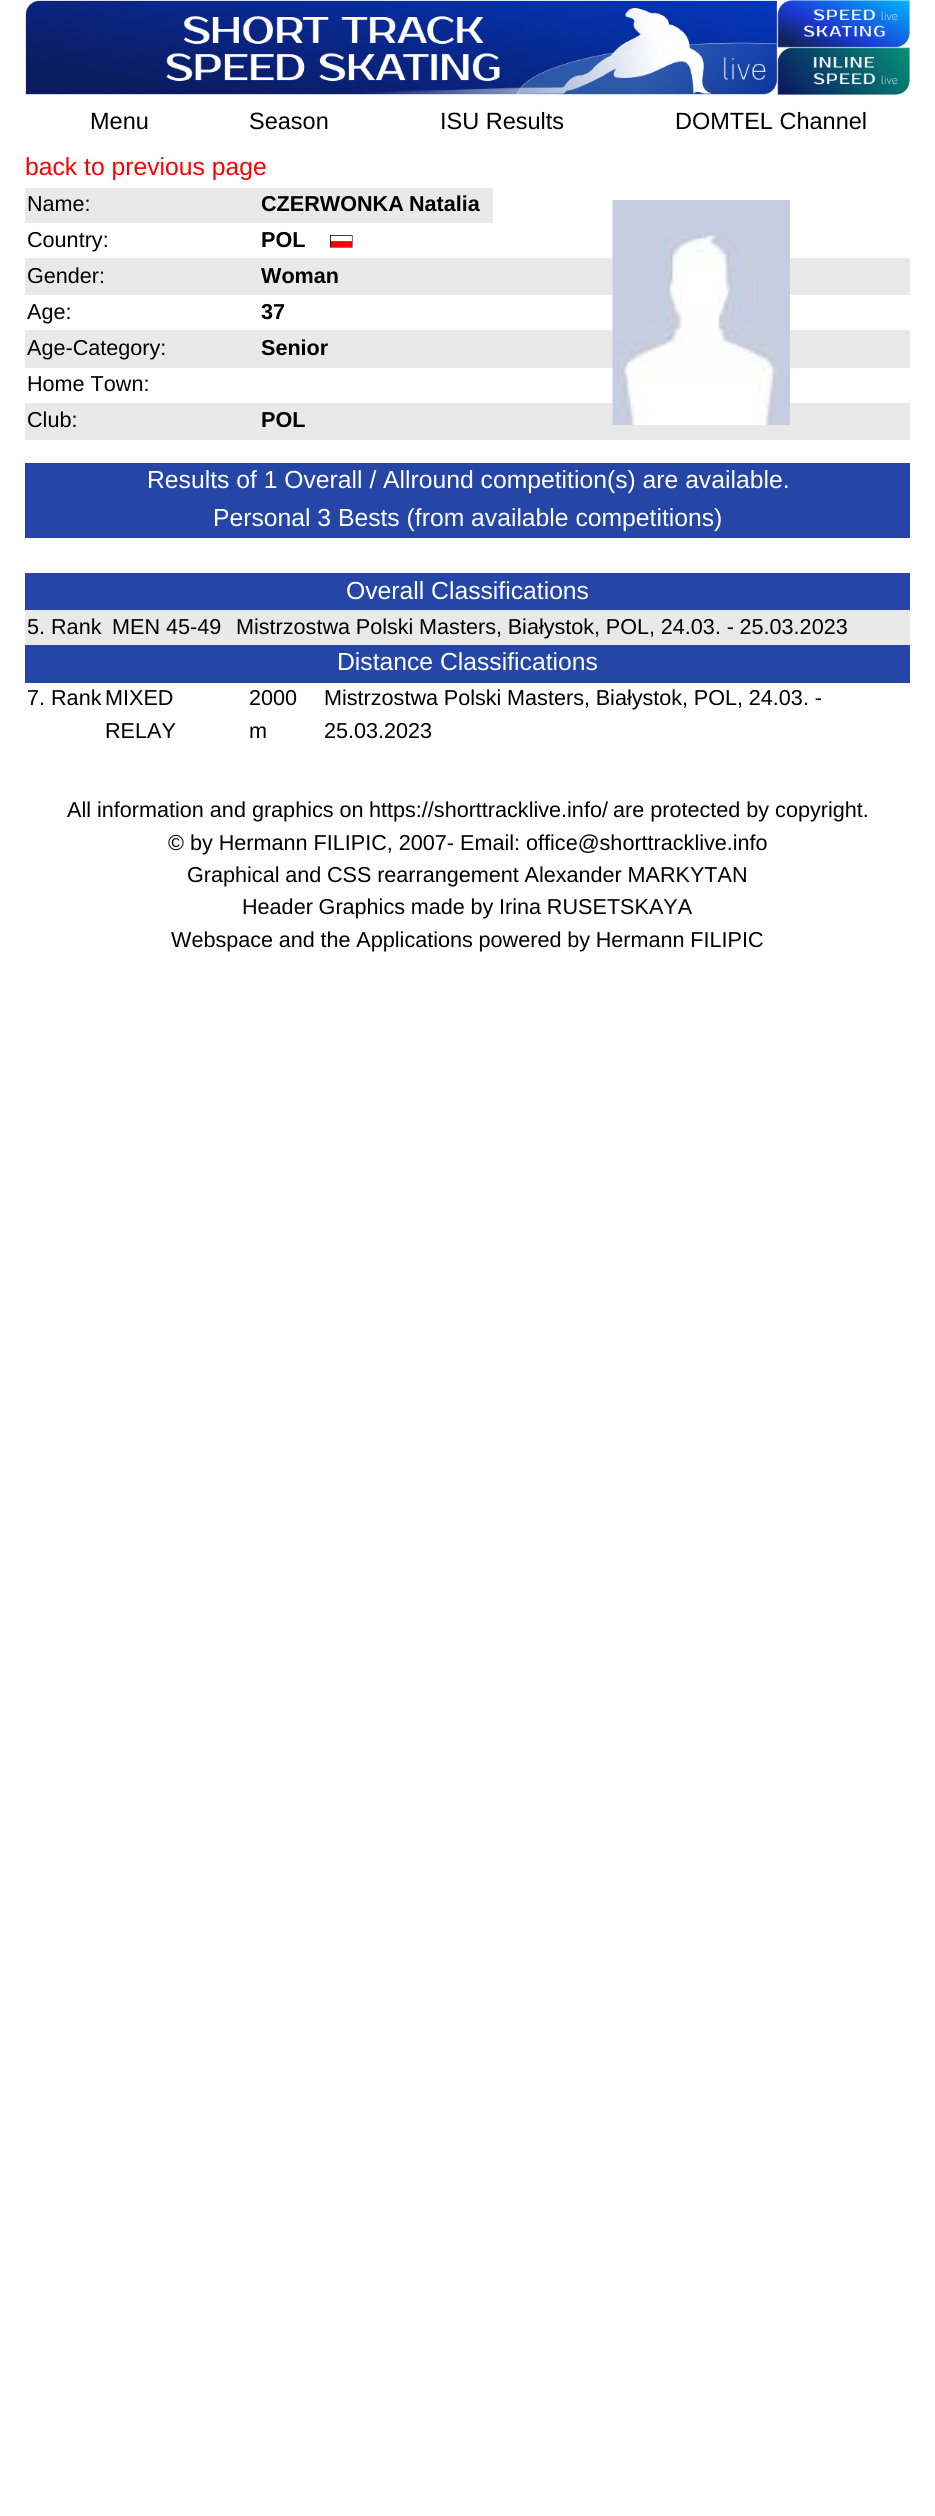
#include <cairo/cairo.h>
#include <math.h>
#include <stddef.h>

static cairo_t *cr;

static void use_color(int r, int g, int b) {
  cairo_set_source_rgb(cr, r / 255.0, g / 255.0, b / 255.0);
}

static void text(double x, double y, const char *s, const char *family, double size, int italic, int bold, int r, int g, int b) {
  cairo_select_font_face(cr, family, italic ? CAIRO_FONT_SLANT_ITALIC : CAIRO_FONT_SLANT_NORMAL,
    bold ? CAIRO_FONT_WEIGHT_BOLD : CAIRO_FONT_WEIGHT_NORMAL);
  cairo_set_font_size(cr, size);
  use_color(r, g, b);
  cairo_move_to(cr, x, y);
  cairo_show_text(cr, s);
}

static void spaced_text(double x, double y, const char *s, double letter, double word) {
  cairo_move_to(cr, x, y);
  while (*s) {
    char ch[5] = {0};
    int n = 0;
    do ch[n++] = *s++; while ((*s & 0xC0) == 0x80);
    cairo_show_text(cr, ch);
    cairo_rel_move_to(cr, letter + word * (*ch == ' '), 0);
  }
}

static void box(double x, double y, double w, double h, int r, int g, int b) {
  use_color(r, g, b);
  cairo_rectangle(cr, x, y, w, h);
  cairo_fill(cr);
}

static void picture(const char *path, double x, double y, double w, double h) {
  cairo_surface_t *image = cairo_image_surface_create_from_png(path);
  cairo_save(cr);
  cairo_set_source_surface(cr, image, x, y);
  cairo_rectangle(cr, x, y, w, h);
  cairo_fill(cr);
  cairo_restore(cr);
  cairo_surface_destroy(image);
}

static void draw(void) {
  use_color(255, 255, 255);
  cairo_paint(cr);
  picture("img_01.png", 25, 0, 752, 95);
  picture("img_02.png", 777, 0, 133, 48);
  picture("img_03.png", 777, 47, 133, 48);
  box(25, 188, 468, 35, 233, 233, 233);
  box(25, 258, 885, 37, 233, 233, 233);
  box(25, 330, 885, 38, 233, 233, 233);
  box(25, 403, 885, 37, 233, 233, 233);
  picture("img_04.png", 612, 200, 178, 225);
  picture("img_05.png", 330, 235, 23, 13);
  box(25, 463, 885, 75, 38, 70, 167);
  box(25, 573, 885, 37, 38, 70, 167);
  box(25, 610, 885, 35, 233, 233, 233);
  box(25, 645, 885, 38, 38, 70, 167);
  text(90, 129, "Menu", "Liberation Sans", 23.5, 0, 0, 0, 0, 0);
  text(249, 129, "Season", "Liberation Sans", 23.5, 0, 0, 0, 0, 0);
  text(440, 129, "ISU Results", "Liberation Sans", 23.5, 0, 0, 0, 0, 0);
  text(675, 129, "DOMTEL Channel", "Liberation Sans", 23.5, 0, 0, 0, 0, 0);
  text(25, 175, "back to previous page", "Liberation Sans", 24.7, 0, 0, 255, 0, 0);
  text(27, 211, "Name:", "Liberation Sans", 21.6, 0, 0, 0, 0, 0);
  text(261, 211, "CZERWONKA", "Liberation Sans", 21.6, 0, 1, 0, 0, 0);
  text(409, 211, "Natalia", "Liberation Sans", 21.6, 0, 1, 0, 0, 0);
  text(27, 247, "Country:", "Liberation Sans", 21.6, 0, 0, 0, 0, 0);
  text(261, 247, "POL", "Liberation Sans", 21.6, 0, 1, 0, 0, 0);
  text(27, 283, "Gender:", "Liberation Sans", 21.6, 0, 0, 0, 0, 0);
  text(261, 283, "Woman", "Liberation Sans", 21.6, 0, 1, 0, 0, 0);
  text(27, 319, "Age:", "Liberation Sans", 21.6, 0, 0, 0, 0, 0);
  text(261, 319, "37", "Liberation Sans", 21.6, 0, 1, 0, 0, 0);
  text(27, 355, "Age-Category:", "Liberation Sans", 21.6, 0, 0, 0, 0, 0);
  text(261, 355, "Senior", "Liberation Sans", 21.6, 0, 1, 0, 0, 0);
  text(27, 391, "Home Town:", "Liberation Sans", 21.6, 0, 0, 0, 0, 0);
  text(27, 427, "Club:", "Liberation Sans", 21.6, 0, 0, 0, 0, 0);
  text(261, 427, "POL", "Liberation Sans", 21.6, 0, 1, 0, 0, 0);
  text(147, 488, "Results of 1 Overall / Allround competition(s) are available.", "Liberation Sans", 24.7, 0, 0, 255, 255, 255);
  text(213, 526, "Personal 3 Bests (from available competitions)", "Liberation Sans", 24.7, 0, 0, 255, 255, 255);
  text(346, 599, "Overall Classifications", "Liberation Sans", 24.7, 0, 0, 255, 255, 255);
  text(27, 634, "5. Rank", "Liberation Sans", 21.6, 0, 0, 0, 0, 0);
  text(112, 634, "MEN 45-49", "Liberation Sans", 21.6, 0, 0, 0, 0, 0);
  spaced_text(236, 634, "Mistrzostwa Polski Masters, Białystok, POL, 24.03. - 25.03.2023", 0, -0.25);
  text(337, 670, "Distance Classifications", "Liberation Sans", 24.7, 0, 0, 255, 255, 255);
  text(27, 705, "7. Rank", "Liberation Sans", 21.6, 0, 0, 0, 0, 0);
  text(105, 705, "MIXED", "Liberation Sans", 21.6, 0, 0, 0, 0, 0);
  text(105, 738, "RELAY", "Liberation Sans", 21.6, 0, 0, 0, 0, 0);
  text(249, 705, "2000", "Liberation Sans", 21.6, 0, 0, 0, 0, 0);
  text(249, 738, "m", "Liberation Sans", 21.6, 0, 0, 0, 0, 0);
  spaced_text(324, 705, "Mistrzostwa Polski Masters, Białystok, POL, 24.03. -", 0, -0.25);
  text(324, 738, "25.03.2023", "Liberation Sans", 21.6, 0, 0, 0, 0, 0);
  text(67, 817, "All information and graphics on", "Liberation Sans", 21.6, 0, 0, 0, 0, 0);
  text(369, 817, "https://shorttracklive.info/", "Liberation Sans", 21.6, 0, 0, 0, 0, 0);
  text(613, 817, "are protected by copyright.", "Liberation Sans", 21.6, 0, 0, 0, 0, 0);
  text(168, 850, "© by Hermann FILIPIC, 2007-", "Liberation Sans", 21.6, 0, 0, 0, 0, 0);
  text(460, 850, "Email: office@shorttracklive.info", "Liberation Sans", 21.6, 0, 0, 0, 0, 0);
  spaced_text(187, 882, "Graphical and CSS rearrangement Alexander MARKYTAN", 0, -0.25);
  spaced_text(242, 914, "Header Graphics made by Irina RUSETSKAYA", 0, -0.25);
  spaced_text(171, 947, "Webspace and the Applications powered by Hermann FILIPIC", 0, -0.25);
}

int main(void) {
  cairo_surface_t *surface = cairo_image_surface_create(CAIRO_FORMAT_RGB24, 935, 2516);
  cr = cairo_create(surface);
  cairo_font_options_t *options = cairo_font_options_create();
  cairo_font_options_set_hint_metrics(options, CAIRO_HINT_METRICS_OFF);
  cairo_font_options_set_hint_style(options, CAIRO_HINT_STYLE_NONE);
  cairo_set_font_options(cr, options);
  cairo_set_miter_limit(cr, 4);
  draw();
  cairo_surface_write_to_png(surface, "out.png");
  cairo_font_options_destroy(options);
  cairo_destroy(cr);
  cairo_surface_destroy(surface);
  return 0;
}
